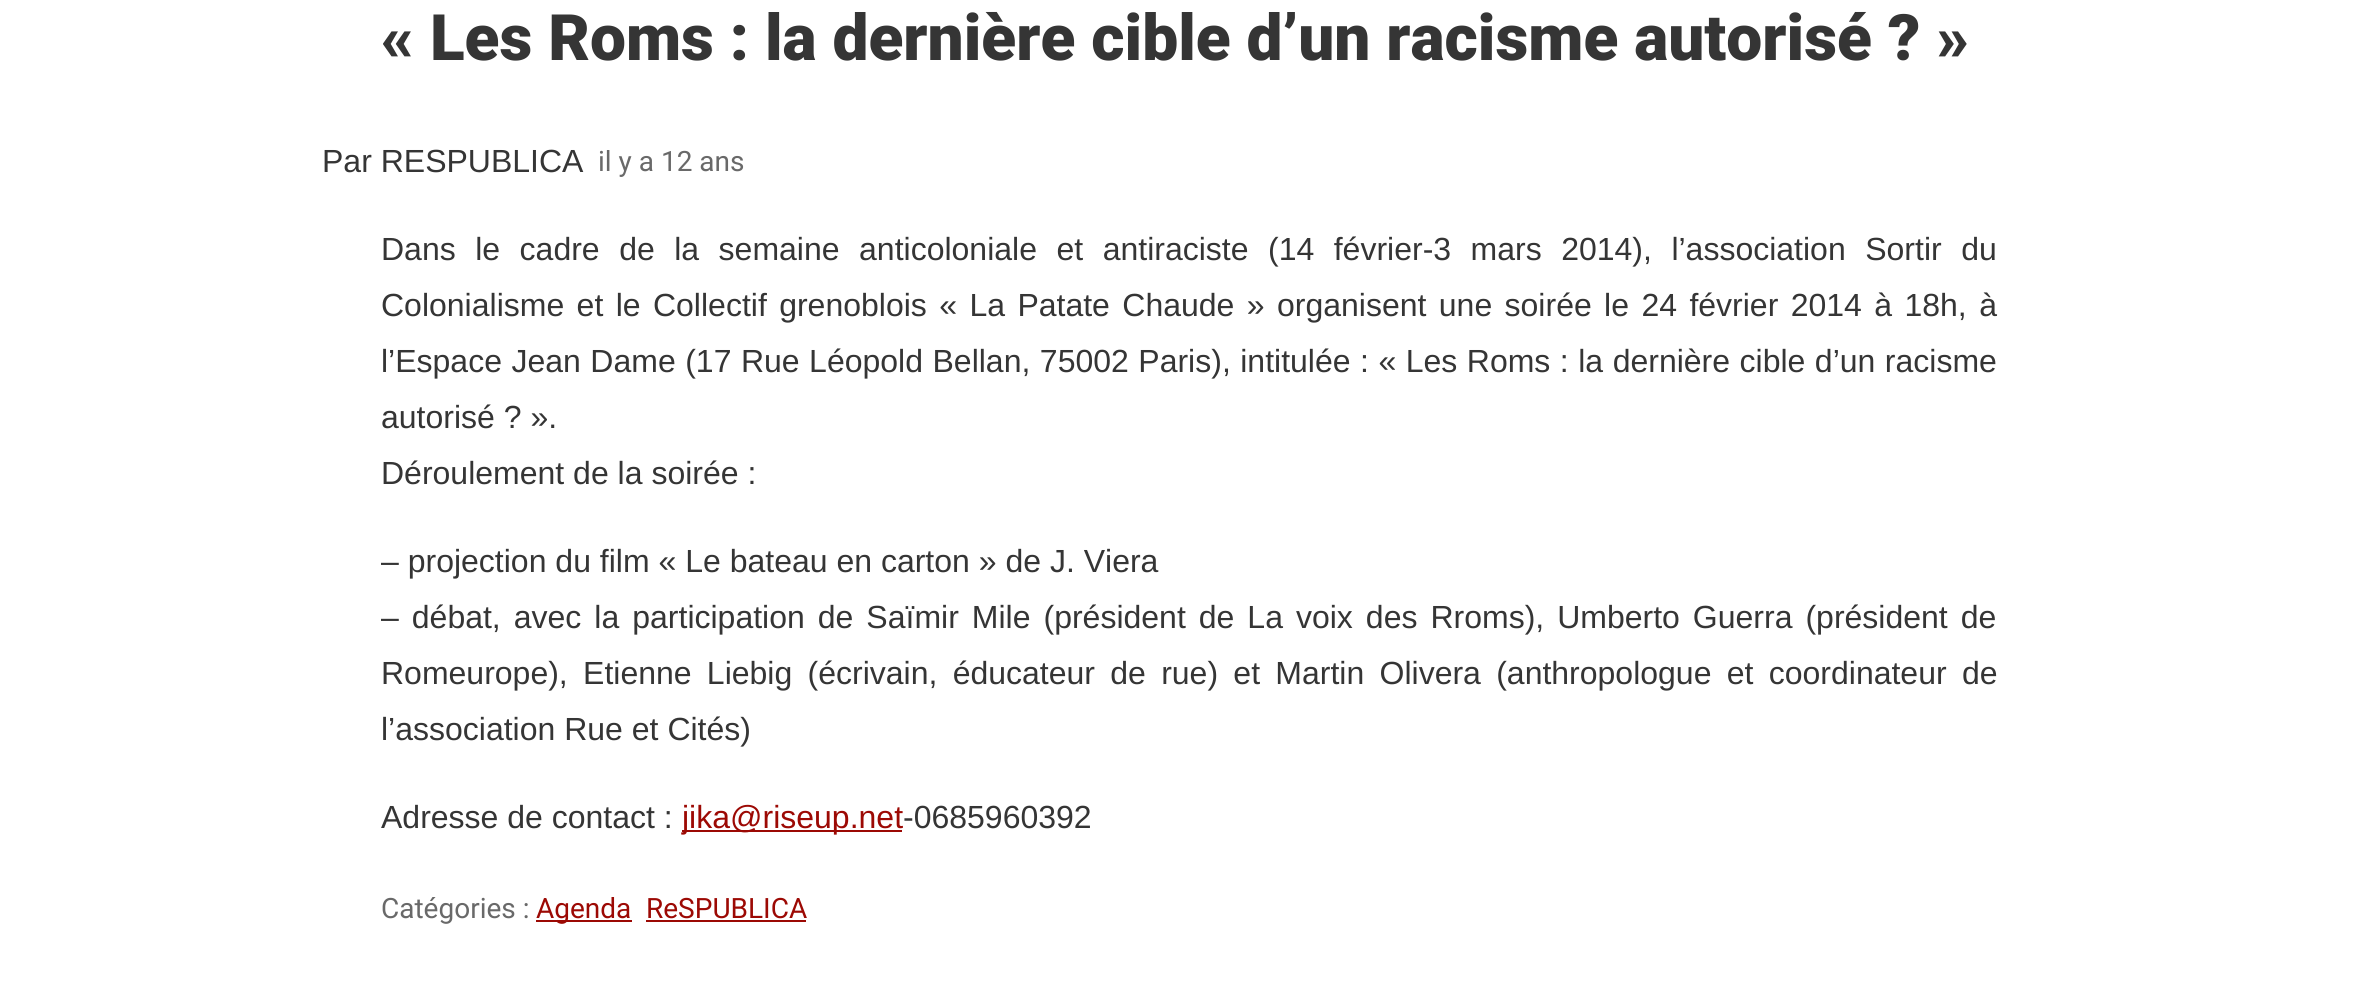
#include <cairo/cairo.h>
#include <math.h>
#include <stddef.h>

static cairo_t *cr;

static void use_color(int r, int g, int b) {
  cairo_set_source_rgb(cr, r / 255.0, g / 255.0, b / 255.0);
}

static void text(double x, double y, const char *s, const char *family, double size, int italic, int bold, int r, int g, int b) {
  cairo_select_font_face(cr, family, italic ? CAIRO_FONT_SLANT_ITALIC : CAIRO_FONT_SLANT_NORMAL,
    bold ? CAIRO_FONT_WEIGHT_BOLD : CAIRO_FONT_WEIGHT_NORMAL);
  cairo_set_font_size(cr, size);
  use_color(r, g, b);
  cairo_move_to(cr, x, y);
  cairo_show_text(cr, s);
}

static void spaced_text(double x, double y, const char *s, double letter, double word) {
  cairo_move_to(cr, x, y);
  while (*s) {
    char ch[5] = {0};
    int n = 0;
    do ch[n++] = *s++; while ((*s & 0xC0) == 0x80);
    cairo_show_text(cr, ch);
    cairo_rel_move_to(cr, letter + word * (*ch == ' '), 0);
  }
}

static void box(double x, double y, double w, double h, int r, int g, int b) {
  use_color(r, g, b);
  cairo_rectangle(cr, x, y, w, h);
  cairo_fill(cr);
}

static void draw(void) {
  use_color(255, 255, 255);
  cairo_paint(cr);
  box(682, 830, 220, 2, 156, 9, 4);
  box(536, 920, 96, 2, 156, 9, 4);
  box(646, 920, 160, 2, 156, 9, 4);
  text(381, 60, "« Les Roms : la dernière cible d’un racisme autorisé ? »", "Roboto Black", 64, 0, 0, 53, 53, 53);
  text(322, 172, "Par RESPUBLICA", "Liberation Sans", 32, 0, 0, 53, 53, 53);
  text(598, 171, "il y a 12 ans", "Roboto", 28, 0, 0, 105, 105, 105);
  cairo_select_font_face(cr, "Liberation Sans", CAIRO_FONT_SLANT_NORMAL, CAIRO_FONT_WEIGHT_NORMAL);
  cairo_set_font_size(cr, 32);
  use_color(53, 53, 53);
  spaced_text(381, 260, "Dans le cadre de la semaine anticoloniale et antiraciste (14 février-3 mars 2014), l’association Sortir du", 0, 10.6);
  spaced_text(381, 316, "Colonialisme et le Collectif grenoblois « La Patate Chaude » organisent une soirée le 24 février 2014 à 18h, à", 0, 3.5);
  spaced_text(381, 372, "l’Espace Jean Dame (17 Rue Léopold Bellan, 75002 Paris), intitulée : « Les Roms : la dernière cible d’un racisme", 0, 0.6);
  text(381, 428, "autorisé ? ».", "Liberation Sans", 32, 0, 0, 53, 53, 53);
  text(381, 484, "Déroulement de la soirée :", "Liberation Sans", 32, 0, 0, 53, 53, 53);
  text(381, 572, "– projection du film « Le bateau en carton » de J. Viera", "Liberation Sans", 32, 0, 0, 53, 53, 53);
  spaced_text(381, 628, "– débat, avec la participation de Saïmir Mile (président de La voix des Rroms), Umberto Guerra (président de", 0, 4.1);
  spaced_text(381, 684, "Romeurope), Etienne Liebig (écrivain, éducateur de rue) et Martin Olivera (anthropologue et coordinateur de", 0, 6.4);
  text(381, 740, "l’association Rue et Cités)", "Liberation Sans", 32, 0, 0, 53, 53, 53);
  text(381, 828, "Adresse de contact :", "Liberation Sans", 32, 0, 0, 53, 53, 53);
  text(682, 828, "jika@riseup.net", "Liberation Sans", 32, 0, 0, 156, 9, 4);
  text(903, 828, "-0685960392", "Liberation Sans", 32, 0, 0, 53, 53, 53);
  text(381, 918, "Catégories :", "Roboto", 28, 0, 0, 105, 105, 105);
  text(536, 918, "Agenda", "Roboto", 28, 0, 0, 156, 9, 4);
  text(646, 918, "ReSPUBLICA", "Roboto", 28, 0, 0, 156, 9, 4);
}

int main(void) {
  cairo_surface_t *surface = cairo_image_surface_create(CAIRO_FORMAT_RGB24, 2378, 991);
  cr = cairo_create(surface);
  cairo_font_options_t *options = cairo_font_options_create();
  cairo_font_options_set_hint_metrics(options, CAIRO_HINT_METRICS_OFF);
  cairo_font_options_set_hint_style(options, CAIRO_HINT_STYLE_NONE);
  cairo_set_font_options(cr, options);
  cairo_set_miter_limit(cr, 4);
  draw();
  cairo_surface_write_to_png(surface, "out.png");
  cairo_font_options_destroy(options);
  cairo_destroy(cr);
  cairo_surface_destroy(surface);
  return 0;
}
